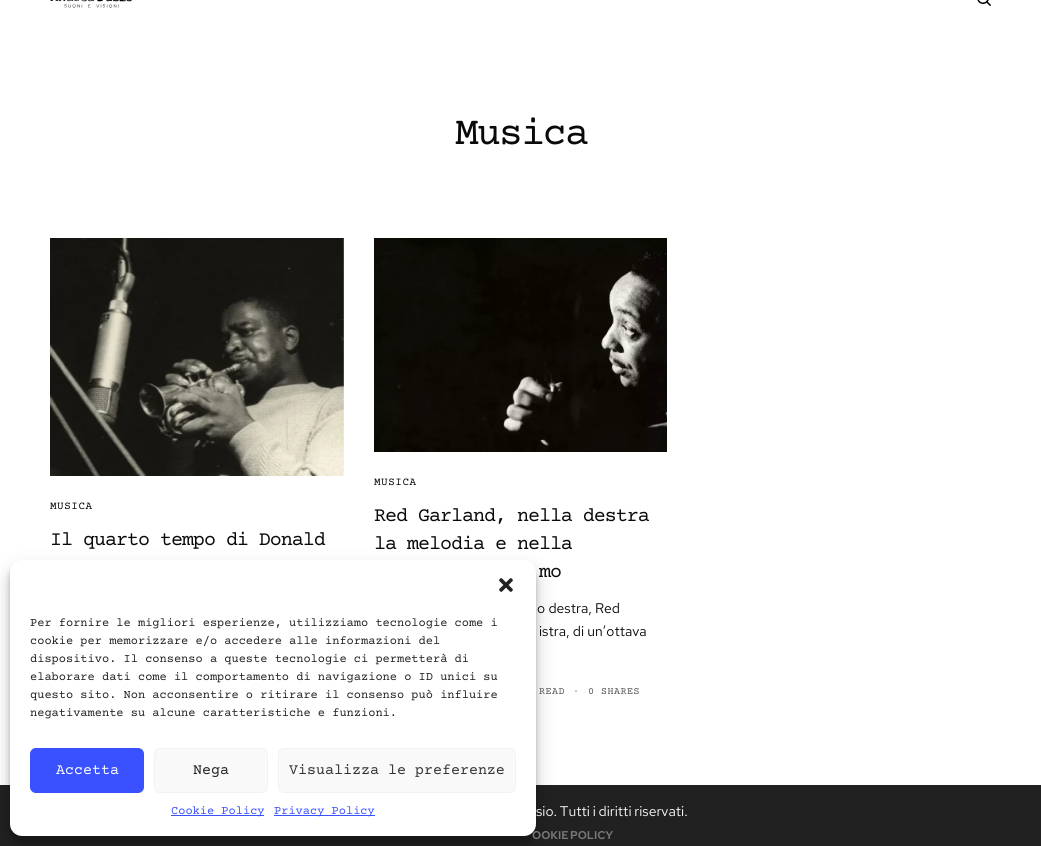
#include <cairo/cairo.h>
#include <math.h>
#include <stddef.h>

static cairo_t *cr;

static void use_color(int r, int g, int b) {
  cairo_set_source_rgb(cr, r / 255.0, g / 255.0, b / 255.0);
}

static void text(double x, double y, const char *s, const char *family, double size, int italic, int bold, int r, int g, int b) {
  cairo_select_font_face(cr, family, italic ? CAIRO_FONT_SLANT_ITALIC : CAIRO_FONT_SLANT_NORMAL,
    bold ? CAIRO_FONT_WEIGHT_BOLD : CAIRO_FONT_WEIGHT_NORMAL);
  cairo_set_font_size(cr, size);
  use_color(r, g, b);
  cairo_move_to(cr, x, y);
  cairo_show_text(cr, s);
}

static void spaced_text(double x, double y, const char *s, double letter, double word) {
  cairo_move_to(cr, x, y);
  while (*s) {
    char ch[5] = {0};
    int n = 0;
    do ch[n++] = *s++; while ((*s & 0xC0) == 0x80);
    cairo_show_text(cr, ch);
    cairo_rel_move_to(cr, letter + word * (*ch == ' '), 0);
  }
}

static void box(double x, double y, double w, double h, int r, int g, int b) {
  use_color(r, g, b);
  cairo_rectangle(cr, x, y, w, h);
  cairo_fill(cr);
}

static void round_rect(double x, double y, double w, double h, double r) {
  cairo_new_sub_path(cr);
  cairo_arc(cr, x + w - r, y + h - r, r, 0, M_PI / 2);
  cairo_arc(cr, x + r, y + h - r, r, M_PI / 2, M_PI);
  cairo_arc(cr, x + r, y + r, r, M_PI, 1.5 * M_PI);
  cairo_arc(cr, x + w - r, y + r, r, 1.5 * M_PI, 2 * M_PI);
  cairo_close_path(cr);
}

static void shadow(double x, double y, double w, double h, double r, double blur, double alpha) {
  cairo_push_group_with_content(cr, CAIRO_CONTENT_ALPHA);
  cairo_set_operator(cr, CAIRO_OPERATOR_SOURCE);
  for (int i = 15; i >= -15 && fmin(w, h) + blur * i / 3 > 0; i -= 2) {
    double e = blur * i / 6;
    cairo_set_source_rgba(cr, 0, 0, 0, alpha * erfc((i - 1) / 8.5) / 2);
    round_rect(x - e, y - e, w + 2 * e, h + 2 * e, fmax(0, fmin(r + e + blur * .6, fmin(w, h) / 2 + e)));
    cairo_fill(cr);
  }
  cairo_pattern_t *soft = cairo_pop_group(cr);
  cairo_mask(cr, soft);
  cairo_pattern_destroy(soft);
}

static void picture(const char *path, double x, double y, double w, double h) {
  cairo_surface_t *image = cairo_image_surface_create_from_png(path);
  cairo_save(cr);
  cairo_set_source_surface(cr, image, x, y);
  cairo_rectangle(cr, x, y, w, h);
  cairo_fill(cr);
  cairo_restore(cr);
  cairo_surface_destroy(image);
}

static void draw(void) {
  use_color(255, 255, 255);
  cairo_paint(cr);
  picture("img_01.png", 50, 0, 82, 8);
  picture("img_02.png", 977, 0, 14, 6);
  picture("img_03.png", 50, 238, 294, 238);
  picture("img_04.png", 374, 238, 293, 214);
  box(0, 785, 1041, 61, 33, 33, 33);
  use_color(0, 0, 0);
  shadow(10, 566, 526, 276, 12, 3, 0.23);
  shadow(10, 570, 526, 276, 12, 10, 0.19);
  cairo_select_font_face(cr, "Courier Prime", CAIRO_FONT_SLANT_NORMAL, CAIRO_FONT_WEIGHT_NORMAL);
  cairo_set_font_size(cr, 40);
  use_color(10, 10, 10);
  spaced_text(455, 144, "Musica", -2, 0);
  cairo_set_font_size(cr, 11);
  spaced_text(50, 509, "MUSICA", 0.5, 0);
  cairo_set_font_size(cr, 20);
  spaced_text(50, 545, "Il quarto tempo di Donald", -1, 0);
  cairo_set_font_size(cr, 11);
  spaced_text(374, 485, "MUSICA", 0.5, 0);
  cairo_set_font_size(cr, 20);
  spaced_text(374, 521, "Red Garland, nella destra", -1, 0);
  spaced_text(374, 549, "la melodia e nella", -1, 0);
  spaced_text(539, 577, "mo", -1, 0);
  text(537, 613, "o destra, Red", "Red Hat Text", 14, 0, 0, 10, 10, 10);
  text(539, 636, "istra, di un’ottava", "Red Hat Text", 14, 0, 0, 10, 10, 10);
  cairo_select_font_face(cr, "Courier Prime", CAIRO_FONT_SLANT_NORMAL, CAIRO_FONT_WEIGHT_NORMAL);
  cairo_set_font_size(cr, 10);
  use_color(84, 84, 84);
  spaced_text(539, 694, "READ", 0.5, 0);
  cairo_select_font_face(cr, "Courier Prime", CAIRO_FONT_SLANT_NORMAL, CAIRO_FONT_WEIGHT_BOLD);
  use_color(181, 181, 181);
  spaced_text(573, 694, "·", 0.5, 0);
  cairo_select_font_face(cr, "Courier Prime", CAIRO_FONT_SLANT_NORMAL, CAIRO_FONT_WEIGHT_NORMAL);
  use_color(84, 84, 84);
  spaced_text(588, 694, "0 SHARES", 0.5, 0);
  cairo_select_font_face(cr, "Red Hat Text", CAIRO_FONT_SLANT_NORMAL, CAIRO_FONT_WEIGHT_NORMAL);
  cairo_set_font_size(cr, 14);
  use_color(249, 249, 249);
  spaced_text(536, 816, "sio. Tutti i diritti riservati.", 0, -0.5);
  cairo_select_font_face(cr, "Red Hat Text SemiBold", CAIRO_FONT_SLANT_NORMAL, CAIRO_FONT_WEIGHT_NORMAL);
  cairo_set_font_size(cr, 11.25);
  use_color(122, 122, 122);
  spaced_text(532, 839, "OOKIE POLICY", 0, -1);
  use_color(255, 255, 255);
  round_rect(10, 560, 526, 276, 12);
  cairo_fill(cr);
  picture("img_05.png", 499, 578, 14, 14);
  text(30, 626, "Per fornire le migliori esperienze, utilizziamo tecnologie come i", "Courier Prime", 12, 0, 0, 34, 34, 34);
  text(30, 644, "cookie per memorizzare e/o accedere alle informazioni del", "Courier Prime", 12, 0, 0, 34, 34, 34);
  text(30, 662, "dispositivo. Il consenso a queste tecnologie ci permetterà di", "Courier Prime", 12, 0, 0, 34, 34, 34);
  text(30, 680, "elaborare dati come il comportamento di navigazione o ID unici su", "Courier Prime", 12, 0, 0, 34, 34, 34);
  text(30, 698, "questo sito. Non acconsentire o ritirare il consenso può influire", "Courier Prime", 12, 0, 0, 34, 34, 34);
  text(30, 716, "negativamente su alcune caratteristiche e funzioni.", "Courier Prime", 12, 0, 0, 34, 34, 34);
  use_color(57, 81, 255);
  round_rect(30.5, 748.5, 113, 44, 5.5);
  cairo_fill_preserve(cr);
  cairo_set_line_width(cr, 1);
  cairo_stroke(cr);
  text(56, 774, "Accetta", "Courier Prime", 15, 0, 0, 255, 255, 255);
  use_color(249, 249, 249);
  round_rect(154.5, 748.5, 113, 44, 5.5);
  cairo_fill_preserve(cr);
  use_color(242, 242, 242);
  cairo_stroke(cr);
  text(193, 774, "Nega", "Courier Prime", 15, 0, 0, 34, 34, 34);
  use_color(249, 249, 249);
  round_rect(278.5, 748.5, 237, 44, 5.5);
  cairo_fill_preserve(cr);
  use_color(242, 242, 242);
  cairo_stroke(cr);
  text(289, 774, "Visualizza le preferenze", "Courier Prime", 15, 0, 0, 51, 51, 51);
  box(171, 815, 93, 1, 57, 81, 255);
  text(171, 814, "Cookie Policy", "Courier Prime", 12, 0, 0, 57, 81, 255);
  box(274, 815, 101, 1, 57, 81, 255);
  text(274, 814, "Privacy Policy", "Courier Prime", 12, 0, 0, 57, 81, 255);
}

int main(void) {
  cairo_surface_t *surface = cairo_image_surface_create(CAIRO_FORMAT_RGB24, 1041, 846);
  cr = cairo_create(surface);
  cairo_font_options_t *options = cairo_font_options_create();
  cairo_font_options_set_hint_metrics(options, CAIRO_HINT_METRICS_OFF);
  cairo_font_options_set_hint_style(options, CAIRO_HINT_STYLE_NONE);
  cairo_set_font_options(cr, options);
  cairo_set_miter_limit(cr, 4);
  draw();
  cairo_surface_write_to_png(surface, "out.png");
  cairo_font_options_destroy(options);
  cairo_destroy(cr);
  cairo_surface_destroy(surface);
  return 0;
}
